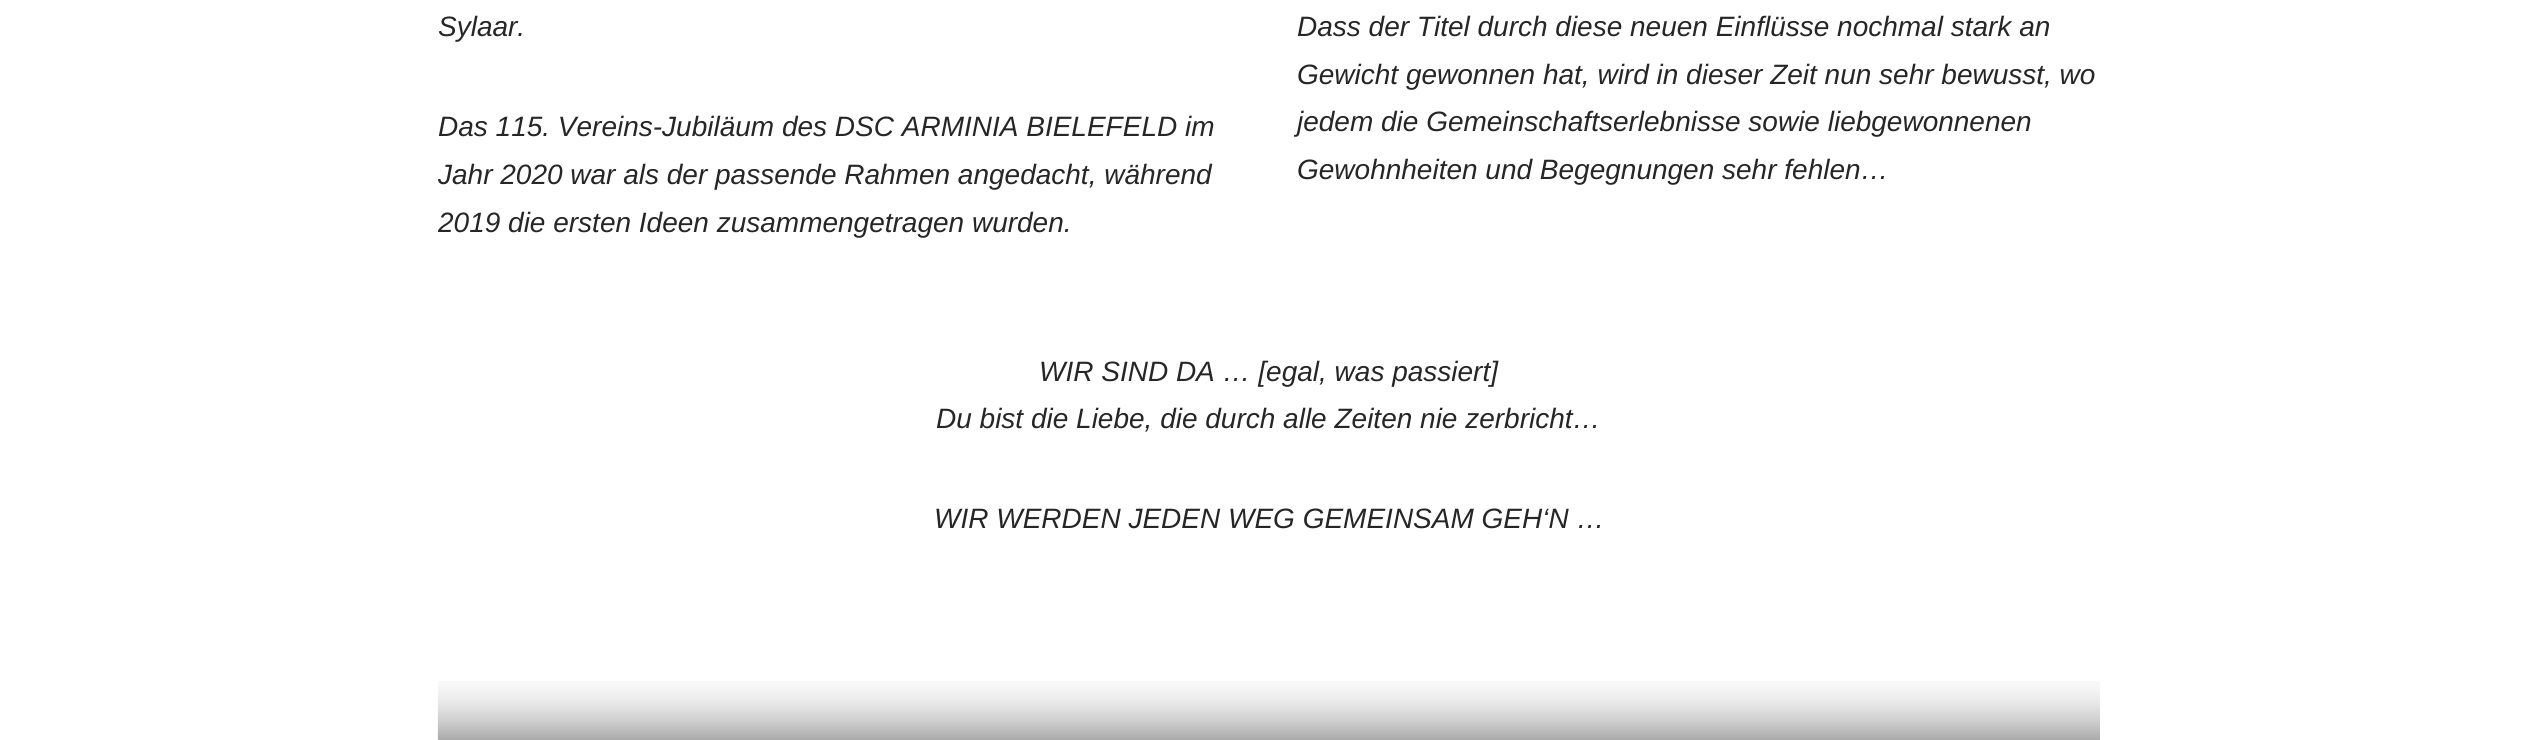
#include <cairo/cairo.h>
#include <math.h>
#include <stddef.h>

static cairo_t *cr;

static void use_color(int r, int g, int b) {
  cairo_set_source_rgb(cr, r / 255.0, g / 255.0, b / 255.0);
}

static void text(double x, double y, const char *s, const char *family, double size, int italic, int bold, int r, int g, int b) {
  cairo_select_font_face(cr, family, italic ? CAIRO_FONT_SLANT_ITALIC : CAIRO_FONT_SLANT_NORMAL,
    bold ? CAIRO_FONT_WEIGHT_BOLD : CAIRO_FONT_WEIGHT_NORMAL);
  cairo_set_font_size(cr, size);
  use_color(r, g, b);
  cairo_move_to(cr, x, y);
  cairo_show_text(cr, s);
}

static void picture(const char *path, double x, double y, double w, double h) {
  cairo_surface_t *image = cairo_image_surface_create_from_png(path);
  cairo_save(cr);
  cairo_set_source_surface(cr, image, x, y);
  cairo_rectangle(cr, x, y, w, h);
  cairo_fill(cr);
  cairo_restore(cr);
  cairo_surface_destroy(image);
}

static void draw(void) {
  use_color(255, 255, 255);
  cairo_paint(cr);
  picture("img_01.png", 437, 681, 1663, 59);
  text(438, 36, "Sylaar.", "Liberation Sans", 28, 1, 0, 39, 38, 38);
  text(438, 136, "Das 115. Vereins-Jubiläum des DSC ARMINIA BIELEFELD im", "Liberation Sans", 28, 1, 0, 39, 38, 38);
  text(438, 184, "Jahr 2020 war als der passende Rahmen angedacht, während", "Liberation Sans", 28, 1, 0, 39, 38, 38);
  text(438, 232, "2019 die ersten Ideen zusammengetragen wurden.", "Liberation Sans", 28, 1, 0, 39, 38, 38);
  text(1297, 36, "Dass der Titel durch diese neuen Einflüsse nochmal stark an", "Liberation Sans", 28, 1, 0, 39, 38, 38);
  text(1297, 84, "Gewicht gewonnen hat, wird in dieser Zeit nun sehr bewusst, wo", "Liberation Sans", 28, 1, 0, 39, 38, 38);
  text(1297, 131, "jedem die Gemeinschaftserlebnisse sowie liebgewonnenen", "Liberation Sans", 28, 1, 0, 39, 38, 38);
  text(1297, 179, "Gewohnheiten und Begegnungen sehr fehlen…", "Liberation Sans", 28, 1, 0, 39, 38, 38);
  text(1039, 381, "WIR SIND DA … [egal, was passiert]", "Liberation Sans", 28, 1, 0, 39, 38, 38);
  text(936, 428, "Du bist die Liebe, die durch alle Zeiten nie zerbricht…", "Liberation Sans", 28, 1, 0, 39, 38, 38);
  text(934, 528, "WIR WERDEN JEDEN WEG GEMEINSAM GEH‘N …", "Liberation Sans", 28, 1, 0, 39, 38, 38);
}

int main(void) {
  cairo_surface_t *surface = cairo_image_surface_create(CAIRO_FORMAT_RGB24, 2536, 740);
  cr = cairo_create(surface);
  cairo_font_options_t *options = cairo_font_options_create();
  cairo_font_options_set_hint_metrics(options, CAIRO_HINT_METRICS_OFF);
  cairo_font_options_set_hint_style(options, CAIRO_HINT_STYLE_NONE);
  cairo_set_font_options(cr, options);
  cairo_set_miter_limit(cr, 4);
  draw();
  cairo_surface_write_to_png(surface, "out.png");
  cairo_font_options_destroy(options);
  cairo_destroy(cr);
  cairo_surface_destroy(surface);
  return 0;
}
